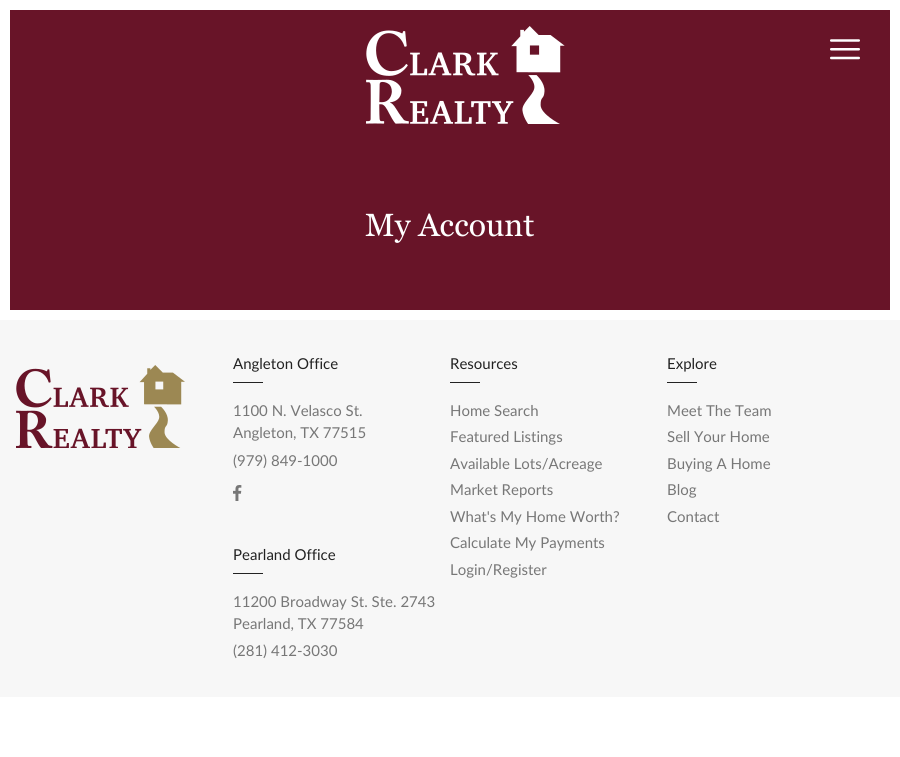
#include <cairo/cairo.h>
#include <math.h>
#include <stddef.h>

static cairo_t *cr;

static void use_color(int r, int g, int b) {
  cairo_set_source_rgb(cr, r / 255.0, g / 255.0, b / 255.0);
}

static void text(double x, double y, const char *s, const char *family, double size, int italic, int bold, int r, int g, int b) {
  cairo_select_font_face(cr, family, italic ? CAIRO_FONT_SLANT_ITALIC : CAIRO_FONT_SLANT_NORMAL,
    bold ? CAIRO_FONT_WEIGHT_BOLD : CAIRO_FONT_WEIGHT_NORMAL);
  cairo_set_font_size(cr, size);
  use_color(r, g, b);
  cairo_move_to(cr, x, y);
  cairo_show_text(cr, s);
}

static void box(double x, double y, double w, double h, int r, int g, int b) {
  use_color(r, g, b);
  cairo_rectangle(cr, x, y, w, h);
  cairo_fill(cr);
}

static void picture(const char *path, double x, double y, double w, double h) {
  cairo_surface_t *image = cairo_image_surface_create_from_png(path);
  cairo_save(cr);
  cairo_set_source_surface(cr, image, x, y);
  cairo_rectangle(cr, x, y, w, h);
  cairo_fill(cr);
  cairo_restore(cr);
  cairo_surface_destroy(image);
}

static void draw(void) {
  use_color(255, 255, 255);
  cairo_paint(cr);
  box(10, 10, 880, 300, 104, 20, 40);
  picture("img_01.png", 366, 26, 199, 98);
  picture("img_02.png", 830, 39, 30, 21);
  box(0, 320, 900, 377, 247, 247, 247);
  picture("img_03.png", 16, 365, 169, 83);
  box(233, 382, 30, 1, 34, 34, 34);
  picture("img_04.png", 233, 485, 9, 16);
  box(233, 573, 30, 1, 34, 34, 34);
  box(450, 382, 30, 1, 34, 34, 34);
  box(667, 382, 30, 1, 34, 34, 34);
  text(365, 236, "My Account", "Georgia", 32, 0, 0, 255, 255, 255);
  text(233, 369, "Angleton Office", "Lato", 15, 0, 0, 34, 34, 34);
  text(233, 416, "1100 N. Velasco St.", "Lato", 15, 0, 0, 119, 119, 119);
  text(233, 438, "Angleton, TX 77515", "Lato", 15, 0, 0, 119, 119, 119);
  text(233, 466, "(979) 849-1000", "Lato", 15, 0, 0, 119, 119, 119);
  text(233, 560, "Pearland Office", "Lato", 15, 0, 0, 34, 34, 34);
  text(233, 607, "11200 Broadway St. Ste. 2743", "Lato", 15, 0, 0, 119, 119, 119);
  text(233, 629, "Pearland, TX 77584", "Lato", 15, 0, 0, 119, 119, 119);
  text(233, 656, "(281) 412-3030", "Lato", 15, 0, 0, 119, 119, 119);
  text(450, 369, "Resources", "Lato", 15, 0, 0, 34, 34, 34);
  text(450, 416, "Home Search", "Lato", 15, 0, 0, 119, 119, 119);
  text(450, 442, "Featured Listings", "Lato", 15, 0, 0, 119, 119, 119);
  text(450, 469, "Available Lots/Acreage", "Lato", 15, 0, 0, 119, 119, 119);
  text(450, 495, "Market Reports", "Lato", 15, 0, 0, 119, 119, 119);
  text(450, 522, "What's My Home Worth?", "Lato", 15, 0, 0, 119, 119, 119);
  text(450, 548, "Calculate My Payments", "Lato", 15, 0, 0, 119, 119, 119);
  text(450, 575, "Login/Register", "Lato", 15, 0, 0, 119, 119, 119);
  text(667, 369, "Explore", "Lato", 15, 0, 0, 34, 34, 34);
  text(667, 416, "Meet The Team", "Lato", 15, 0, 0, 119, 119, 119);
  text(667, 442, "Sell Your Home", "Lato", 15, 0, 0, 119, 119, 119);
  text(667, 469, "Buying A Home", "Lato", 15, 0, 0, 119, 119, 119);
  text(667, 495, "Blog", "Lato", 15, 0, 0, 119, 119, 119);
  text(667, 522, "Contact", "Lato", 15, 0, 0, 119, 119, 119);
}

int main(void) {
  cairo_surface_t *surface = cairo_image_surface_create(CAIRO_FORMAT_RGB24, 900, 757);
  cr = cairo_create(surface);
  cairo_font_options_t *options = cairo_font_options_create();
  cairo_font_options_set_hint_metrics(options, CAIRO_HINT_METRICS_OFF);
  cairo_font_options_set_hint_style(options, CAIRO_HINT_STYLE_NONE);
  cairo_set_font_options(cr, options);
  cairo_set_miter_limit(cr, 4);
  draw();
  cairo_surface_write_to_png(surface, "out.png");
  cairo_font_options_destroy(options);
  cairo_destroy(cr);
  cairo_surface_destroy(surface);
  return 0;
}
